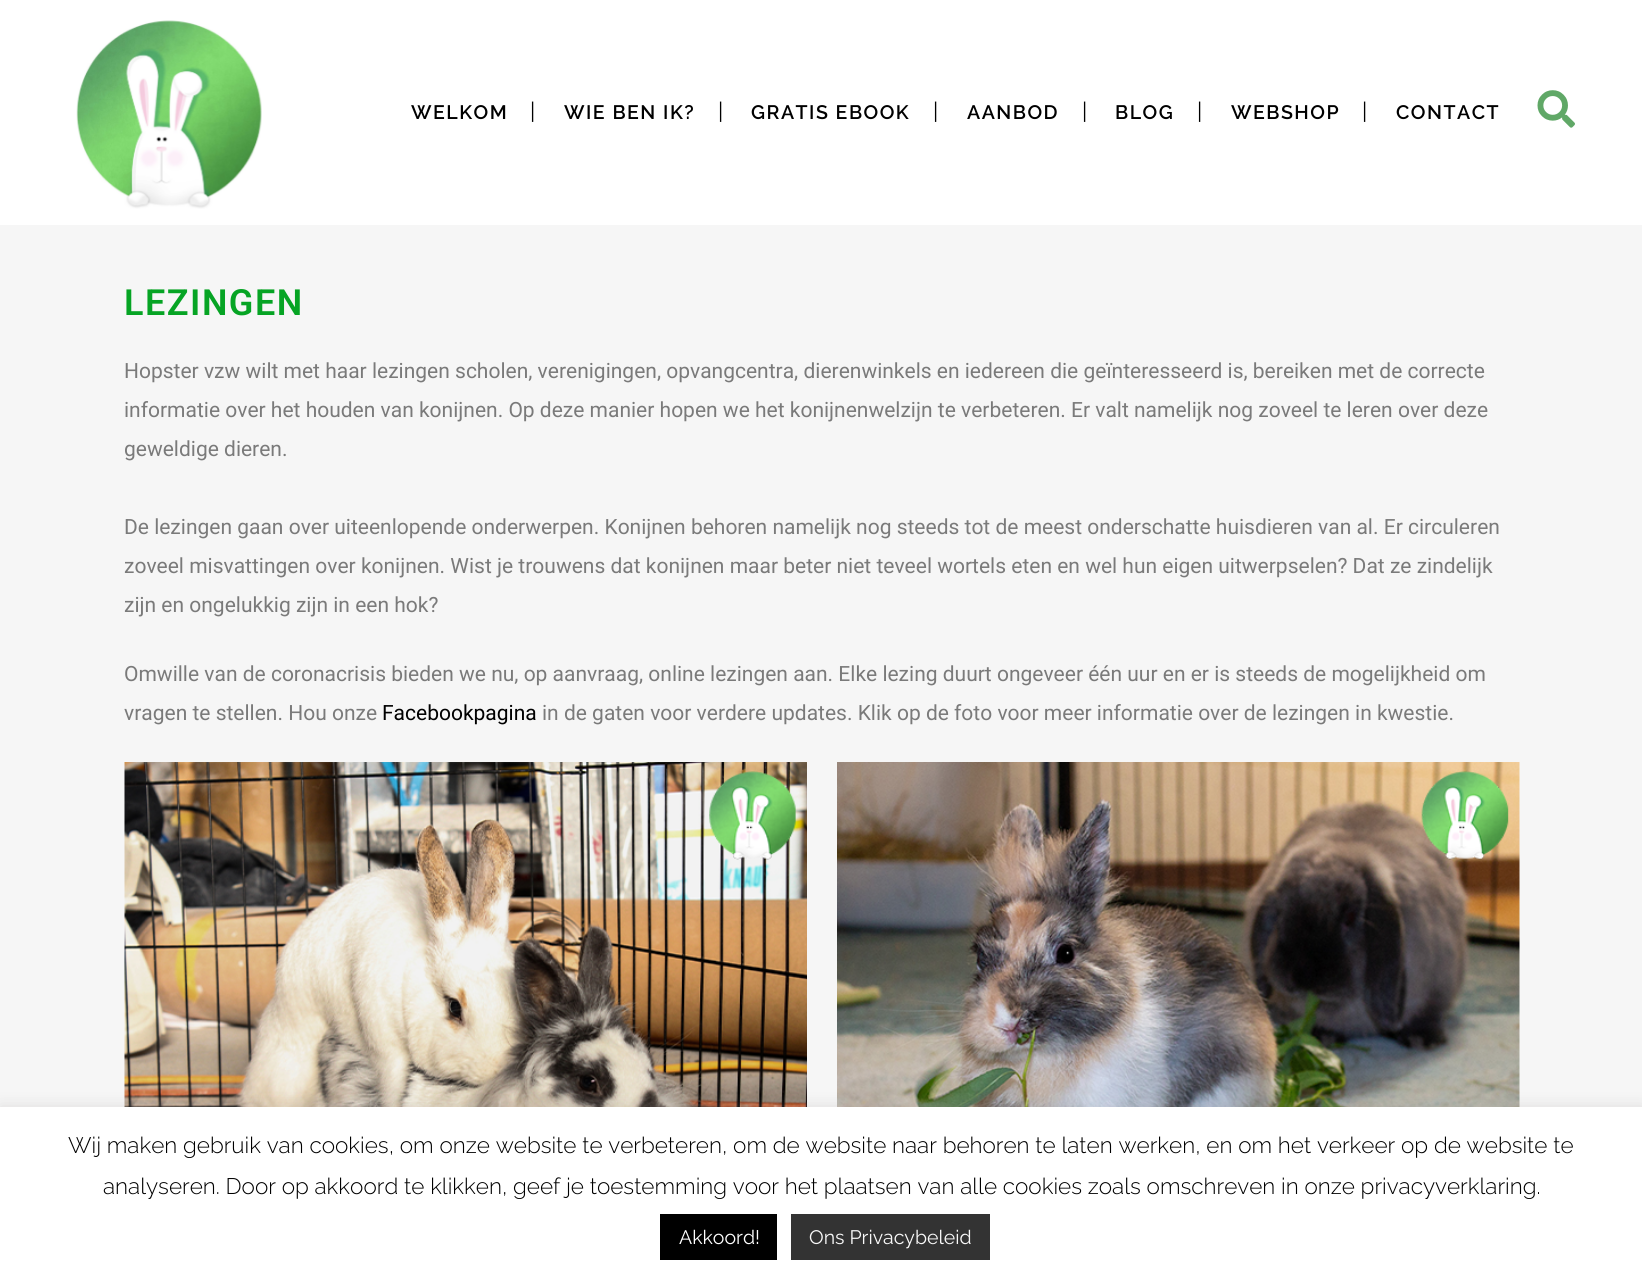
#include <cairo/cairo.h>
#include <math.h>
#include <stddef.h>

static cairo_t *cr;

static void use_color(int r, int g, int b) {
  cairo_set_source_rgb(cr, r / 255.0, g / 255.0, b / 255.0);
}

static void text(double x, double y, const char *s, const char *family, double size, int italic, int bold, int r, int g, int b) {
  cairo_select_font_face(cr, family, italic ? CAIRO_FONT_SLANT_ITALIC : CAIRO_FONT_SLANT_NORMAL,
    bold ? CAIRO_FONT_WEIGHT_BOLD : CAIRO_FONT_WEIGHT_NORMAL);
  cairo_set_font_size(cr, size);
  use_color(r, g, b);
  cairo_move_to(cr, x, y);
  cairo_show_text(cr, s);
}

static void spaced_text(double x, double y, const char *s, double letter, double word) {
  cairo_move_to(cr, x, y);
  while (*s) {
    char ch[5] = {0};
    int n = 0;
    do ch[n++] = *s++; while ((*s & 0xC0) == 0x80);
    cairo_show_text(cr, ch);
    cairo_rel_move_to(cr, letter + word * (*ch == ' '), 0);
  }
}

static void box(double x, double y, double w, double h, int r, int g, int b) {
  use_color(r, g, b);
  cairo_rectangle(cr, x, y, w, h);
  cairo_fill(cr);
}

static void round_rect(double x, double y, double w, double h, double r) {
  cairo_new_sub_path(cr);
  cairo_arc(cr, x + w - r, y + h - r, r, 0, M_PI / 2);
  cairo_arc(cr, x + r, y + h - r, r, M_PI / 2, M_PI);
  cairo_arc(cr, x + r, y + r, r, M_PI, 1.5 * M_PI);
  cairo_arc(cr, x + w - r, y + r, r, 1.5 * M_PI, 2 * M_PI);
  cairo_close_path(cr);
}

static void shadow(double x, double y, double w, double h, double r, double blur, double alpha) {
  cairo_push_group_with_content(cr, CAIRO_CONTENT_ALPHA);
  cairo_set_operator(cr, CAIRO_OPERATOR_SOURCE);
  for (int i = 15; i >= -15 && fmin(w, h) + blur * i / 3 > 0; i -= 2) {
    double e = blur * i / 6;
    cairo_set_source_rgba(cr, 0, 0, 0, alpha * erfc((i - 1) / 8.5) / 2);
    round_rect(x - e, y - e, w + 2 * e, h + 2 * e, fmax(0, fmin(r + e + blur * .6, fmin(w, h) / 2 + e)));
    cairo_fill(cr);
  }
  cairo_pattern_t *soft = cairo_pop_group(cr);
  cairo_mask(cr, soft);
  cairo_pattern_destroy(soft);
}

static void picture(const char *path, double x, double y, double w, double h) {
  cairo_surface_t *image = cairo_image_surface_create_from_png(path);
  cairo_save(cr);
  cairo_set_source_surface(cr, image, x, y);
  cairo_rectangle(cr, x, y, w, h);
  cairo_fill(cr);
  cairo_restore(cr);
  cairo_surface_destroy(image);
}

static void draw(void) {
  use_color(246, 246, 246);
  cairo_paint(cr);
  box(0, 0, 1642, 225, 255, 255, 255);
  picture("img_01.png", 76, 20, 186, 189);
  picture("img_02.png", 1537, 90, 38, 38);
  picture("img_03.png", 124, 762, 683, 345);
  picture("img_04.png", 837, 762, 683, 345);
  use_color(172, 171, 171);
  shadow(0, 1106, 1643, 171, 0, 7.5, 0.3);
  box(0, 1107, 1642, 170, 255, 255, 255);
  box(660, 1214, 117, 46, 0, 0, 0);
  box(791, 1214, 199, 46, 51, 51, 51);
  cairo_select_font_face(cr, "Raleway SemiBold", CAIRO_FONT_SLANT_NORMAL, CAIRO_FONT_WEIGHT_NORMAL);
  cairo_set_font_size(cr, 19.5);
  use_color(0, 0, 0);
  spaced_text(411, 119, "WELKOM", 1.5, 0);
  text(530, 119, "|", "Raleway", 22.5, 0, 0, 0, 0, 0);
  cairo_select_font_face(cr, "Raleway SemiBold", CAIRO_FONT_SLANT_NORMAL, CAIRO_FONT_WEIGHT_NORMAL);
  cairo_set_font_size(cr, 19.5);
  spaced_text(564, 119, "WIE BEN IK?", 1.5, 0);
  text(718, 119, "|", "Raleway", 22.5, 0, 0, 0, 0, 0);
  cairo_select_font_face(cr, "Raleway SemiBold", CAIRO_FONT_SLANT_NORMAL, CAIRO_FONT_WEIGHT_NORMAL);
  cairo_set_font_size(cr, 19.5);
  spaced_text(751, 119, "GRATIS EBOOK", 1.5, 0);
  text(933, 119, "|", "Raleway", 22.5, 0, 0, 0, 0, 0);
  cairo_select_font_face(cr, "Raleway SemiBold", CAIRO_FONT_SLANT_NORMAL, CAIRO_FONT_WEIGHT_NORMAL);
  cairo_set_font_size(cr, 19.5);
  spaced_text(967, 119, "AANBOD", 1.5, 0);
  text(1082, 119, "|", "Raleway", 22.5, 0, 0, 0, 0, 0);
  cairo_select_font_face(cr, "Raleway SemiBold", CAIRO_FONT_SLANT_NORMAL, CAIRO_FONT_WEIGHT_NORMAL);
  cairo_set_font_size(cr, 19.5);
  spaced_text(1115, 119, "BLOG", 1.5, 0);
  text(1197, 119, "|", "Raleway", 22.5, 0, 0, 0, 0, 0);
  cairo_select_font_face(cr, "Raleway SemiBold", CAIRO_FONT_SLANT_NORMAL, CAIRO_FONT_WEIGHT_NORMAL);
  cairo_set_font_size(cr, 19.5);
  spaced_text(1231, 119, "WEBSHOP", 1.5, 0);
  text(1362, 119, "|", "Raleway", 22.5, 0, 0, 0, 0, 0);
  cairo_select_font_face(cr, "Raleway SemiBold", CAIRO_FONT_SLANT_NORMAL, CAIRO_FONT_WEIGHT_NORMAL);
  cairo_set_font_size(cr, 19.5);
  spaced_text(1396, 119, "CONTACT", 1.5, 0);
  cairo_select_font_face(cr, "Roboto SemiBold", CAIRO_FONT_SLANT_NORMAL, CAIRO_FONT_WEIGHT_NORMAL);
  cairo_set_font_size(cr, 36);
  use_color(6, 164, 36);
  spaced_text(124, 315, "LEZINGEN", 1.5, 0);
  text(124, 378, "Hopster vzw wilt met haar lezingen scholen, verenigingen, opvangcentra, dierenwinkels en iedereen die geïnteresseerd is, bereiken met de correcte", "Roboto", 21, 0, 0, 122, 122, 122);
  text(124, 417, "informatie over het houden van konijnen. Op deze manier hopen we het konijnenwelzijn te verbeteren. Er valt namelijk nog zoveel te leren over deze", "Roboto", 21, 0, 0, 122, 122, 122);
  text(124, 456, "geweldige dieren.", "Roboto", 21, 0, 0, 122, 122, 122);
  text(124, 534, "De lezingen gaan over uiteenlopende onderwerpen. Konijnen behoren namelijk nog steeds tot de meest onderschatte huisdieren van al. Er circuleren", "Roboto", 21, 0, 0, 122, 122, 122);
  text(124, 573, "zoveel misvattingen over konijnen. Wist je trouwens dat konijnen maar beter niet teveel wortels eten en wel hun eigen uitwerpselen? Dat ze zindelijk", "Roboto", 21, 0, 0, 122, 122, 122);
  text(124, 612, "zijn en ongelukkig zijn in een hok?", "Roboto", 21, 0, 0, 122, 122, 122);
  text(124, 681, "Omwille van de coronacrisis bieden we nu, op aanvraag, online lezingen aan. Elke lezing duurt ongeveer één uur en er is steeds de mogelijkheid om", "Roboto", 21, 0, 0, 122, 122, 122);
  text(124, 720, "vragen te stellen. Hou onze", "Roboto", 21, 0, 0, 122, 122, 122);
  text(382, 720, "Facebookpagina", "Roboto", 21, 0, 0, 0, 0, 0);
  text(542, 720, "in de gaten voor verdere updates. Klik op de foto voor meer informatie over de lezingen in kwestie.", "Roboto", 21, 0, 0, 122, 122, 122);
  text(68, 1153, "Wij maken gebruik van cookies, om onze website te verbeteren, om de website naar behoren te laten werken, en om het verkeer op de website te", "Raleway Light", 22.5, 0, 0, 0, 0, 0);
  text(103, 1194, "analyseren. Door op akkoord te klikken, geef je toestemming voor het plaatsen van alle cookies zoals omschreven in onze privacyverklaring.", "Raleway Light", 22.5, 0, 0, 0, 0, 0);
  text(679, 1244, "Akkoord!", "Raleway", 19.5, 0, 0, 255, 255, 255);
  text(809, 1244, "Ons Privacybeleid", "Raleway", 19.5, 0, 0, 249, 249, 249);
}

int main(void) {
  cairo_surface_t *surface = cairo_image_surface_create(CAIRO_FORMAT_RGB24, 1642, 1277);
  cr = cairo_create(surface);
  cairo_font_options_t *options = cairo_font_options_create();
  cairo_font_options_set_hint_metrics(options, CAIRO_HINT_METRICS_OFF);
  cairo_font_options_set_hint_style(options, CAIRO_HINT_STYLE_NONE);
  cairo_set_font_options(cr, options);
  cairo_set_miter_limit(cr, 4);
  draw();
  cairo_surface_write_to_png(surface, "out.png");
  cairo_font_options_destroy(options);
  cairo_destroy(cr);
  cairo_surface_destroy(surface);
  return 0;
}
